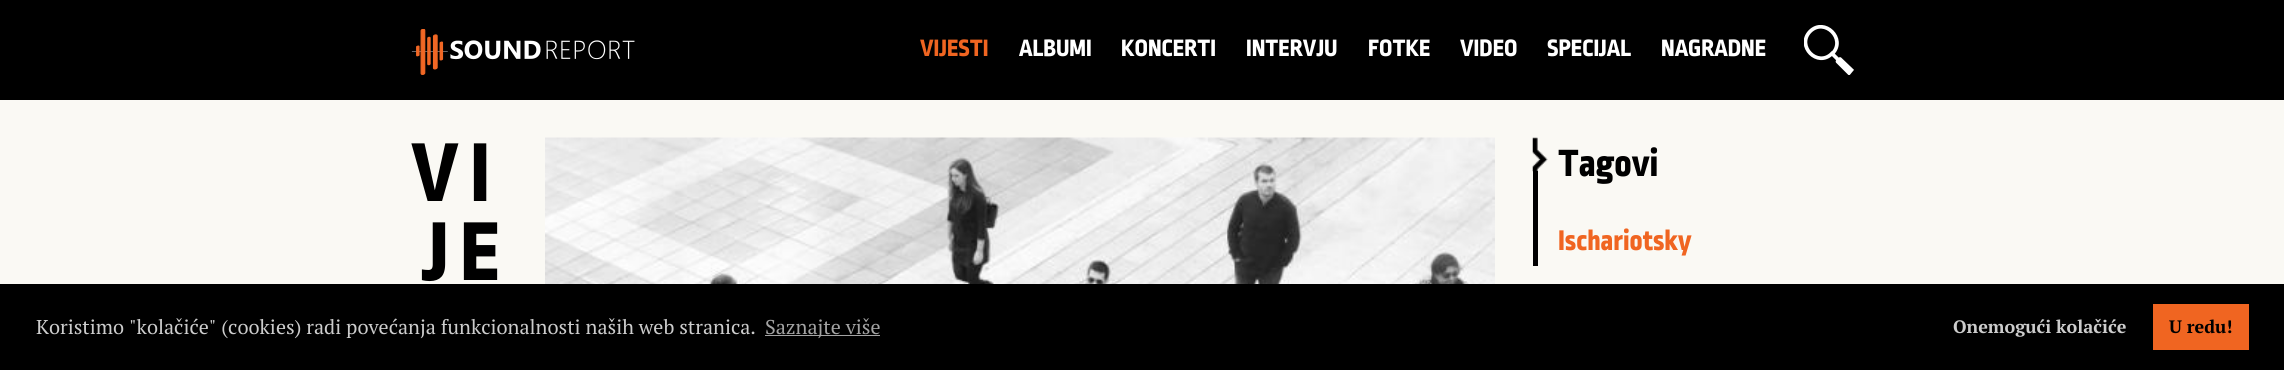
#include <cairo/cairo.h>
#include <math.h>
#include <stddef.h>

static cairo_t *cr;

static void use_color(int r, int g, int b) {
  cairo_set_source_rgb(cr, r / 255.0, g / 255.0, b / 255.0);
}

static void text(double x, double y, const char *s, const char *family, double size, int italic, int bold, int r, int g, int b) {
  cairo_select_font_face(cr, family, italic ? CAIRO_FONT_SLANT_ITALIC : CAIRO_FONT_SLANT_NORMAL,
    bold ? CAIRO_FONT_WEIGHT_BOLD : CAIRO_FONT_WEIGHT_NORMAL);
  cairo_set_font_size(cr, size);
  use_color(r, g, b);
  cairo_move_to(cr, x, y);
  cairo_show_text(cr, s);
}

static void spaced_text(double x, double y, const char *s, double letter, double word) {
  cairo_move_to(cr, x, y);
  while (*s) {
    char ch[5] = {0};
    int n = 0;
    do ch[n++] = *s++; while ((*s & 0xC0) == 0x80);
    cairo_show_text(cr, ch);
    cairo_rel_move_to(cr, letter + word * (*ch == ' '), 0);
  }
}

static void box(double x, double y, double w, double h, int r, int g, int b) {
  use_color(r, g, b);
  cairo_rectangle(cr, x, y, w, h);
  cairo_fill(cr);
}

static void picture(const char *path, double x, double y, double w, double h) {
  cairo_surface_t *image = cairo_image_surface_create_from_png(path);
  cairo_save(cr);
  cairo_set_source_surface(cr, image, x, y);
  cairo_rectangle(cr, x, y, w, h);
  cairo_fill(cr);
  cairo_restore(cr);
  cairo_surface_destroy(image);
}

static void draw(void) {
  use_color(250, 249, 244);
  cairo_paint(cr);
  box(0, 0, 2284, 100, 0, 0, 0);
  picture("img_01.png", 411, 29, 224, 46);
  cairo_save(cr);
  cairo_rectangle(cr, 1804, 25, 50, 50);
  cairo_clip(cr);
  cairo_new_path(cr);
  cairo_move_to(cr, 1832.5, 53.5);
  cairo_curve_to(cr, 1846.5, 39, 1824.5, 17, 1810, 31.5);
  cairo_curve_to(cr, 1796, 46, 1817.5, 68, 1832, 53.5);
  cairo_line_to(cr, 1849.5, 71);
  cairo_move_to(cr, 1840, 59);
  cairo_line_to(cr, 1851.5, 70);
  cairo_line_to(cr, 1849, 73);
  cairo_line_to(cr, 1837.5, 61.5);
  use_color(255, 255, 255);
  cairo_set_line_width(cr, 3.7);
  cairo_set_line_cap(cr, CAIRO_LINE_CAP_ROUND);
  cairo_stroke(cr);
  cairo_restore(cr);
  picture("img_02.png", 545, 137, 950, 147);
  box(1533, 171, 5, 95, 0, 0, 0);
  picture("img_03.png", 1532, 137, 16, 35);
  box(0, 284, 2284, 86, 0, 0, 0);
  box(765, 335, 115, 1, 163, 163, 163);
  box(2153, 304, 96, 46, 240, 101, 33);
  text(920, 56, "VIJESTI", "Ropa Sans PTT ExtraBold", 25, 0, 0, 240, 101, 33);
  text(1019, 56, "ALBUMI", "Ropa Sans PTT ExtraBold", 25, 0, 0, 255, 255, 255);
  text(1121, 56, "KONCERTI", "Ropa Sans PTT ExtraBold", 25, 0, 0, 255, 255, 255);
  text(1246, 56, "INTERVJU", "Ropa Sans PTT ExtraBold", 25, 0, 0, 255, 255, 255);
  text(1368, 56, "FOTKE", "Ropa Sans PTT ExtraBold", 25, 0, 0, 255, 255, 255);
  text(1460, 56, "VIDEO", "Ropa Sans PTT ExtraBold", 25, 0, 0, 255, 255, 255);
  text(1547, 56, "SPECIJAL", "Ropa Sans PTT ExtraBold", 25, 0, 0, 255, 255, 255);
  text(1661, 56, "NAGRADNE", "Ropa Sans PTT ExtraBold", 25, 0, 0, 255, 255, 255);
  cairo_set_font_size(cr, 88);
  use_color(0, 0, 0);
  spaced_text(411, 201, "V", -2, 0);
  spaced_text(470, 201, "I", -2, 0);
  spaced_text(422, 280, "J", -2, 0);
  spaced_text(460, 280, "E", -2, 0);
  text(1558, 176, "Tagovi", "Ropa Sans PTT ExtraBold", 40, 0, 0, 0, 0, 0);
  text(1558, 250, "Ischariotsky", "Ropa Sans PTT ExtraBold", 30, 0, 0, 240, 101, 33);
  text(36, 334, "Koristimo \"kolačiće\" (cookies) radi povećanja funkcionalnosti naših web stranica.", "PT Serif", 20, 0, 0, 204, 204, 204);
  text(765, 334, "Saznajte više", "PT Serif", 20, 0, 0, 163, 163, 163);
  text(1953, 333, "Onemogući kolačiće", "PT Serif", 18, 0, 1, 204, 204, 204);
  text(2169, 333, "U redu!", "PT Serif", 18, 0, 1, 0, 0, 0);
}

int main(void) {
  cairo_surface_t *surface = cairo_image_surface_create(CAIRO_FORMAT_RGB24, 2284, 370);
  cr = cairo_create(surface);
  cairo_font_options_t *options = cairo_font_options_create();
  cairo_font_options_set_hint_metrics(options, CAIRO_HINT_METRICS_OFF);
  cairo_font_options_set_hint_style(options, CAIRO_HINT_STYLE_NONE);
  cairo_set_font_options(cr, options);
  cairo_set_miter_limit(cr, 4);
  draw();
  cairo_surface_write_to_png(surface, "out.png");
  cairo_font_options_destroy(options);
  cairo_destroy(cr);
  cairo_surface_destroy(surface);
  return 0;
}
